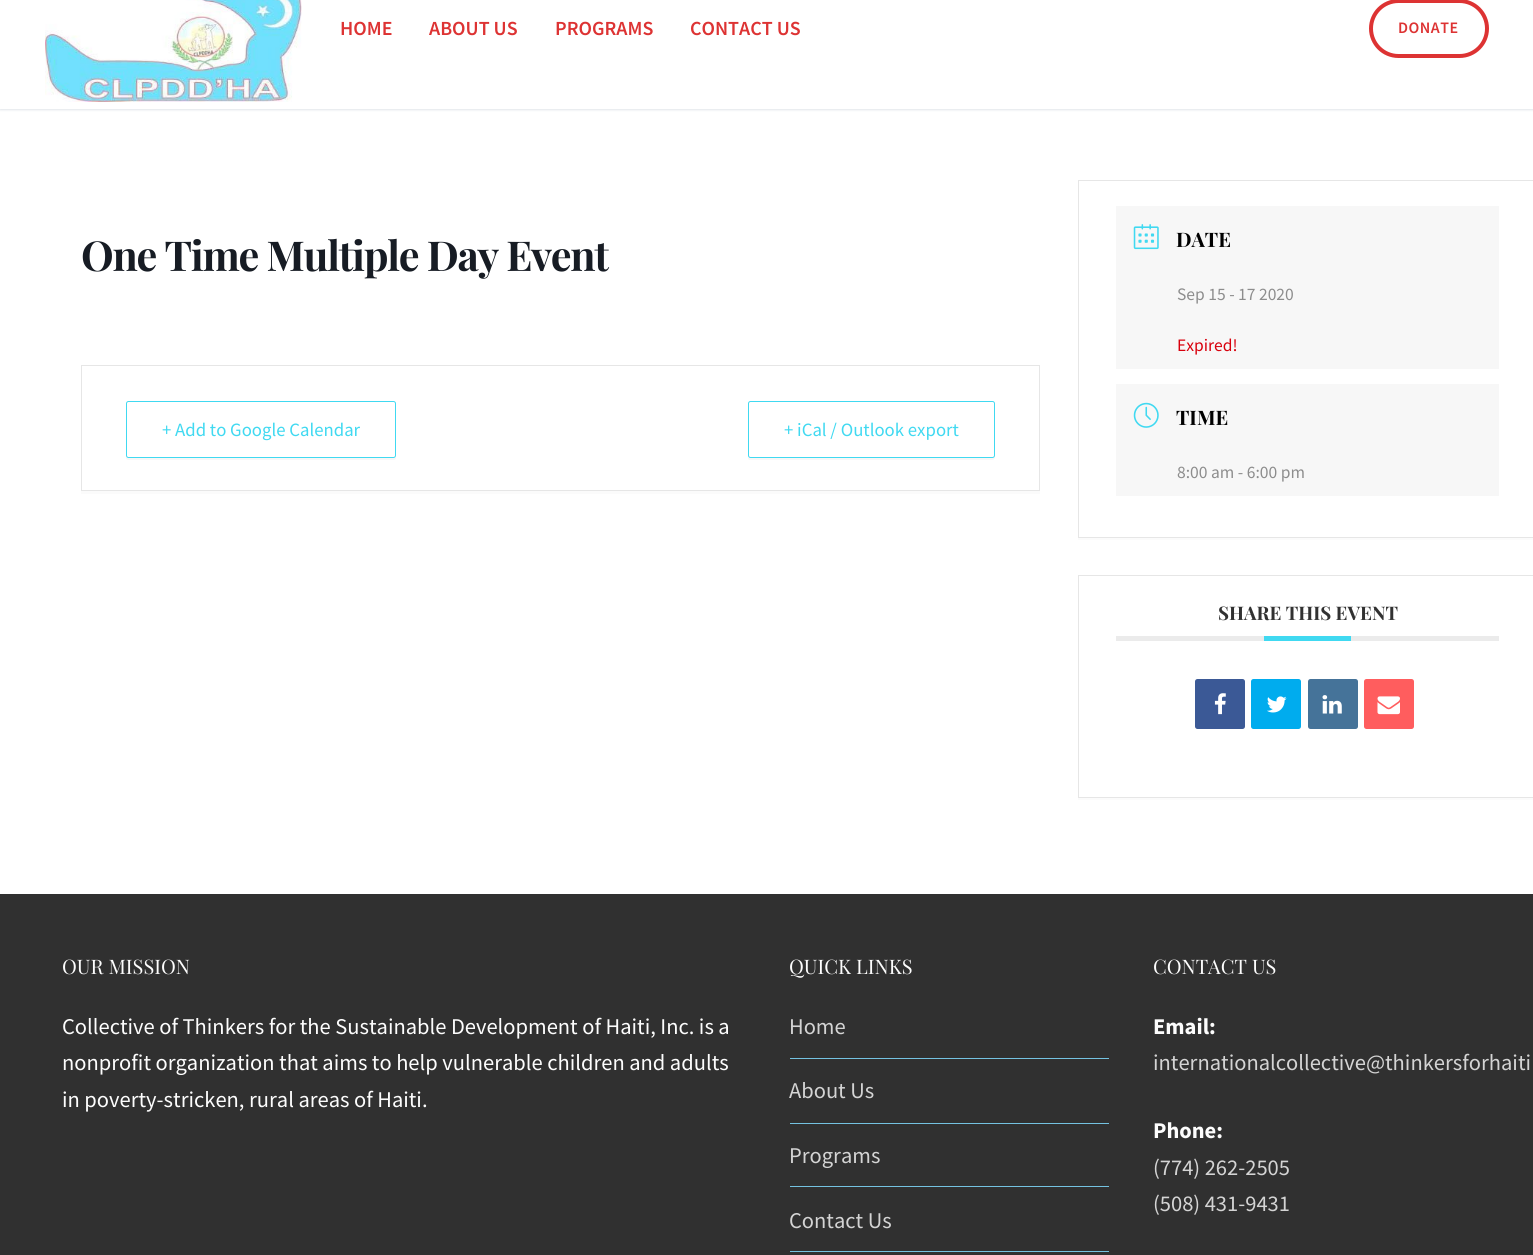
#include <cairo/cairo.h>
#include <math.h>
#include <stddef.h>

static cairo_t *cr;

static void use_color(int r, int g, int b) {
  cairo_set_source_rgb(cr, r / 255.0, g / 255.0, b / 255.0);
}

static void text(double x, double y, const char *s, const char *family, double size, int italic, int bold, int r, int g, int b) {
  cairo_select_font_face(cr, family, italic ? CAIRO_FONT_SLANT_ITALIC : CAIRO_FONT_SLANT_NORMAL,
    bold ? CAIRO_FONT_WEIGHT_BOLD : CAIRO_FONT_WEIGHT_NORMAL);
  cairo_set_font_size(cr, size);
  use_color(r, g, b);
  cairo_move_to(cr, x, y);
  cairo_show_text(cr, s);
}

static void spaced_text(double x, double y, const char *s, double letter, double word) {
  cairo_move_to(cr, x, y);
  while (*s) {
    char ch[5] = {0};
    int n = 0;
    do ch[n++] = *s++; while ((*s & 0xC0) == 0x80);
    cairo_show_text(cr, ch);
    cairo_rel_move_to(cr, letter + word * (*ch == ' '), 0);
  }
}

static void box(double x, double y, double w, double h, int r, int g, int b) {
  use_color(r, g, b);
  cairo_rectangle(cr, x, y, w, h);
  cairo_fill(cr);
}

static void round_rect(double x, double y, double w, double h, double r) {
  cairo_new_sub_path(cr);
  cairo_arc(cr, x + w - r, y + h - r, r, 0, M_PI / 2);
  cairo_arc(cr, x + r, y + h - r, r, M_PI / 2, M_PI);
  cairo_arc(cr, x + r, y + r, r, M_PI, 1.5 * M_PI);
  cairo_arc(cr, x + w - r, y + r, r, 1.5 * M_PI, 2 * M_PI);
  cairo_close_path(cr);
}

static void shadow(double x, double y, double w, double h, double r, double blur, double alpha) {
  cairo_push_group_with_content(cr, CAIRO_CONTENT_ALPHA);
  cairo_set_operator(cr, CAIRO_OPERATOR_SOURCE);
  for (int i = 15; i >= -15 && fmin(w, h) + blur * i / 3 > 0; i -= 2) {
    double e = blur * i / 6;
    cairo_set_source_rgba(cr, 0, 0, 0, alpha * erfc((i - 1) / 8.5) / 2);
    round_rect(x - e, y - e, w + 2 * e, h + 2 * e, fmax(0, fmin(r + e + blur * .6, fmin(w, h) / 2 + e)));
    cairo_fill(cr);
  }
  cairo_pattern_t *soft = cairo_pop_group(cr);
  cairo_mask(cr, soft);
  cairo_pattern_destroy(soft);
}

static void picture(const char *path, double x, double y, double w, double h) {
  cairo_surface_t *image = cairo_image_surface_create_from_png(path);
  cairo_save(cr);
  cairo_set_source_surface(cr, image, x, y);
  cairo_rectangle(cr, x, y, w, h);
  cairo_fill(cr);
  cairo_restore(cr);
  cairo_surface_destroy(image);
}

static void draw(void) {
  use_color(255, 255, 255);
  cairo_paint(cr);
  use_color(225, 229, 234);
  shadow(0, -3, 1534, 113, 0, 1, 1);
  box(0, 0, 1533, 109, 255, 255, 255);
  picture("img_01.png", 45, 0, 257, 102);
  round_rect(1371, 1, 116, 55, 27.5);
  use_color(221, 51, 51);
  cairo_set_line_width(cr, 4);
  cairo_stroke(cr);
  use_color(251, 251, 251);
  cairo_new_path(cr);
  cairo_move_to(cr, 81, 368);
  cairo_line_to(cr, 81, 494);
  cairo_line_to(cr, 1040, 494);
  cairo_line_to(cr, 1040, 491);
  cairo_line_to(cr, 81, 491);
  cairo_close_path(cr);
  cairo_fill(cr);
  cairo_rectangle(cr, 81.5, 365.5, 958, 125);
  use_color(230, 230, 230);
  cairo_set_line_width(cr, 1);
  cairo_stroke(cr);
  use_color(247, 247, 247);
  cairo_new_path(cr);
  cairo_move_to(cr, 126, 405);
  cairo_line_to(cr, 126, 458);
  cairo_curve_to(cr, 126, 459, 127, 460, 128, 460);
  cairo_line_to(cr, 394, 460);
  cairo_curve_to(cr, 395, 460, 396, 459, 396, 458);
  cairo_line_to(cr, 396, 456);
  cairo_curve_to(cr, 396, 457, 395, 458, 394, 458);
  cairo_line_to(cr, 129, 458);
  cairo_curve_to(cr, 127, 458, 126, 456, 126, 455);
  cairo_close_path(cr);
  cairo_fill(cr);
  use_color(255, 255, 255);
  round_rect(126.5, 401.5, 269, 56, 2);
  cairo_fill_preserve(cr);
  use_color(64, 217, 241);
  cairo_stroke(cr);
  use_color(247, 247, 247);
  cairo_new_path(cr);
  cairo_move_to(cr, 748, 457);
  cairo_curve_to(cr, 748, 458, 748, 460, 750, 460);
  cairo_line_to(cr, 992, 460);
  cairo_curve_to(cr, 995, 460, 995, 457, 995, 455);
  cairo_curve_to(cr, 995, 456, 994, 458, 992, 458);
  cairo_line_to(cr, 750, 458);
  cairo_curve_to(cr, 749, 458, 748, 457, 748, 457);
  cairo_close_path(cr);
  cairo_fill(cr);
  use_color(255, 255, 255);
  round_rect(748.5, 401.5, 246, 56, 2);
  cairo_fill_preserve(cr);
  use_color(64, 217, 241);
  cairo_stroke(cr);
  use_color(251, 251, 251);
  cairo_new_path(cr);
  cairo_move_to(cr, 1078, 538);
  cairo_line_to(cr, 1078, 540);
  cairo_line_to(cr, 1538, 540);
  cairo_line_to(cr, 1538, 183);
  cairo_line_to(cr, 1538, 538);
  cairo_close_path(cr);
  cairo_fill(cr);
  cairo_rectangle(cr, 1078.5, 180.5, 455, 357);
  use_color(230, 230, 230);
  cairo_stroke(cr);
  box(1116, 206, 383, 163, 247, 247, 247);
  picture("img_02.png", 1133, 224, 26, 26);
  box(1116, 384, 383, 112, 247, 247, 247);
  picture("img_03.png", 1133, 402, 26, 26);
  use_color(251, 251, 251);
  cairo_new_path(cr);
  cairo_move_to(cr, 1078, 798);
  cairo_line_to(cr, 1078, 800);
  cairo_line_to(cr, 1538, 800);
  cairo_line_to(cr, 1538, 578);
  cairo_line_to(cr, 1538, 798);
  cairo_close_path(cr);
  cairo_fill(cr);
  cairo_rectangle(cr, 1078.5, 575.5, 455, 222);
  use_color(230, 230, 230);
  cairo_stroke(cr);
  box(1116, 636, 383, 5, 235, 235, 235);
  box(1264, 636, 87, 5, 64, 217, 241);
  use_color(59, 89, 150);
  round_rect(1195, 679, 50, 50, 2.5);
  cairo_fill(cr);
  picture("img_04.png", 1214, 693, 12, 22);
  use_color(0, 172, 238);
  round_rect(1251, 679, 50, 50, 2.5);
  cairo_fill(cr);
  picture("img_05.png", 1267, 696, 20, 17);
  use_color(69, 115, 153);
  round_rect(1308, 679, 50, 50, 2.5);
  cairo_fill(cr);
  picture("img_06.png", 1322, 695, 20, 19);
  use_color(255, 93, 94);
  round_rect(1364, 679, 50, 50, 2.5);
  cairo_fill(cr);
  picture("img_07.png", 1377, 696, 23, 19);
  box(0, 894, 1533, 361, 48, 48, 48);
  box(790, 1058, 319, 1, 116, 194, 225);
  box(790, 1123, 319, 1, 116, 194, 225);
  box(790, 1186, 319, 1, 116, 194, 225);
  box(790, 1251, 319, 1, 116, 194, 225);
  text(340, 35, "HOME", "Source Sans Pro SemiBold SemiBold", 20, 0, 0, 221, 51, 51);
  text(429, 35, "ABOUT US", "Source Sans Pro SemiBold SemiBold", 20, 0, 0, 221, 51, 51);
  text(555, 35, "PROGRAMS", "Source Sans Pro SemiBold SemiBold", 20, 0, 0, 221, 51, 51);
  text(690, 35, "CONTACT US", "Source Sans Pro SemiBold SemiBold", 20, 0, 0, 221, 51, 51);
  cairo_set_font_size(cr, 16);
  spaced_text(1398, 33, "DONATE", 0.5, 0);
  cairo_select_font_face(cr, "Playfair Display", CAIRO_FONT_SLANT_NORMAL, CAIRO_FONT_WEIGHT_BOLD);
  cairo_set_font_size(cr, 41.25);
  use_color(23, 28, 36);
  spaced_text(81, 271, "One Time Multiple Day Event", -1.25, 0);
  text(162, 436, "+ Add to Google Calendar", "Source Sans Pro", 18.75, 0, 0, 64, 217, 241);
  text(784, 436, "+ iCal / Outlook export", "Source Sans Pro", 18.75, 0, 0, 64, 217, 241);
  text(1176, 247, "DATE", "Playfair Display", 20, 0, 1, 0, 0, 0);
  text(1177, 300, "Sep 15 - 17 2020", "Source Sans Pro", 17.5, 0, 0, 141, 141, 141);
  text(1177, 351, "Expired!", "Source Sans Pro", 17.5, 0, 0, 216, 0, 12);
  text(1176, 425, "TIME", "Playfair Display", 20, 0, 1, 0, 0, 0);
  text(1177, 478, "8:00 am - 6:00 pm", "Source Sans Pro", 17.5, 0, 0, 141, 141, 141);
  text(1218, 620, "SHARE THIS EVENT", "Playfair Display", 18.75, 0, 1, 49, 49, 49);
  text(62, 974, "OUR MISSION", "Playfair Display", 20, 0, 0, 253, 253, 253);
  text(62, 1034, "Collective of Thinkers for the Sustainable Development of Haiti, Inc. is a", "Source Sans Pro", 22.5, 0, 0, 253, 253, 253);
  text(62, 1070, "nonprofit organization that aims to help vulnerable children and adults", "Source Sans Pro", 22.5, 0, 0, 253, 253, 253);
  text(62, 1107, "in poverty-stricken, rural areas of Haiti.", "Source Sans Pro", 22.5, 0, 0, 253, 253, 253);
  text(789, 974, "QUICK LINKS", "Playfair Display", 20, 0, 0, 253, 253, 253);
  text(789, 1034, "Home", "Source Sans Pro", 22.5, 0, 0, 212, 212, 212);
  text(789, 1098, "About Us", "Source Sans Pro", 22.5, 0, 0, 212, 212, 212);
  text(789, 1163, "Programs", "Source Sans Pro", 22.5, 0, 0, 212, 212, 212);
  text(789, 1228, "Contact Us", "Source Sans Pro", 22.5, 0, 0, 212, 212, 212);
  text(1153, 974, "CONTACT US", "Playfair Display", 20, 0, 0, 253, 253, 253);
  text(1153, 1034, "Email:", "Source Sans Pro", 22.5, 0, 1, 253, 253, 253);
  text(1153, 1070, "internationalcollective@thinkersforhaiti", "Source Sans Pro", 22.5, 0, 0, 212, 212, 212);
  text(1153, 1138, "Phone:", "Source Sans Pro", 22.5, 0, 1, 253, 253, 253);
  text(1153, 1175, "(774) 262-2505", "Source Sans Pro", 22.5, 0, 0, 212, 212, 212);
  text(1153, 1211, "(508) 431-9431", "Source Sans Pro", 22.5, 0, 0, 212, 212, 212);
}

int main(void) {
  cairo_surface_t *surface = cairo_image_surface_create(CAIRO_FORMAT_RGB24, 1533, 1255);
  cr = cairo_create(surface);
  cairo_font_options_t *options = cairo_font_options_create();
  cairo_font_options_set_hint_metrics(options, CAIRO_HINT_METRICS_OFF);
  cairo_font_options_set_hint_style(options, CAIRO_HINT_STYLE_NONE);
  cairo_set_font_options(cr, options);
  cairo_set_miter_limit(cr, 4);
  draw();
  cairo_surface_write_to_png(surface, "out.png");
  cairo_font_options_destroy(options);
  cairo_destroy(cr);
  cairo_surface_destroy(surface);
  return 0;
}
